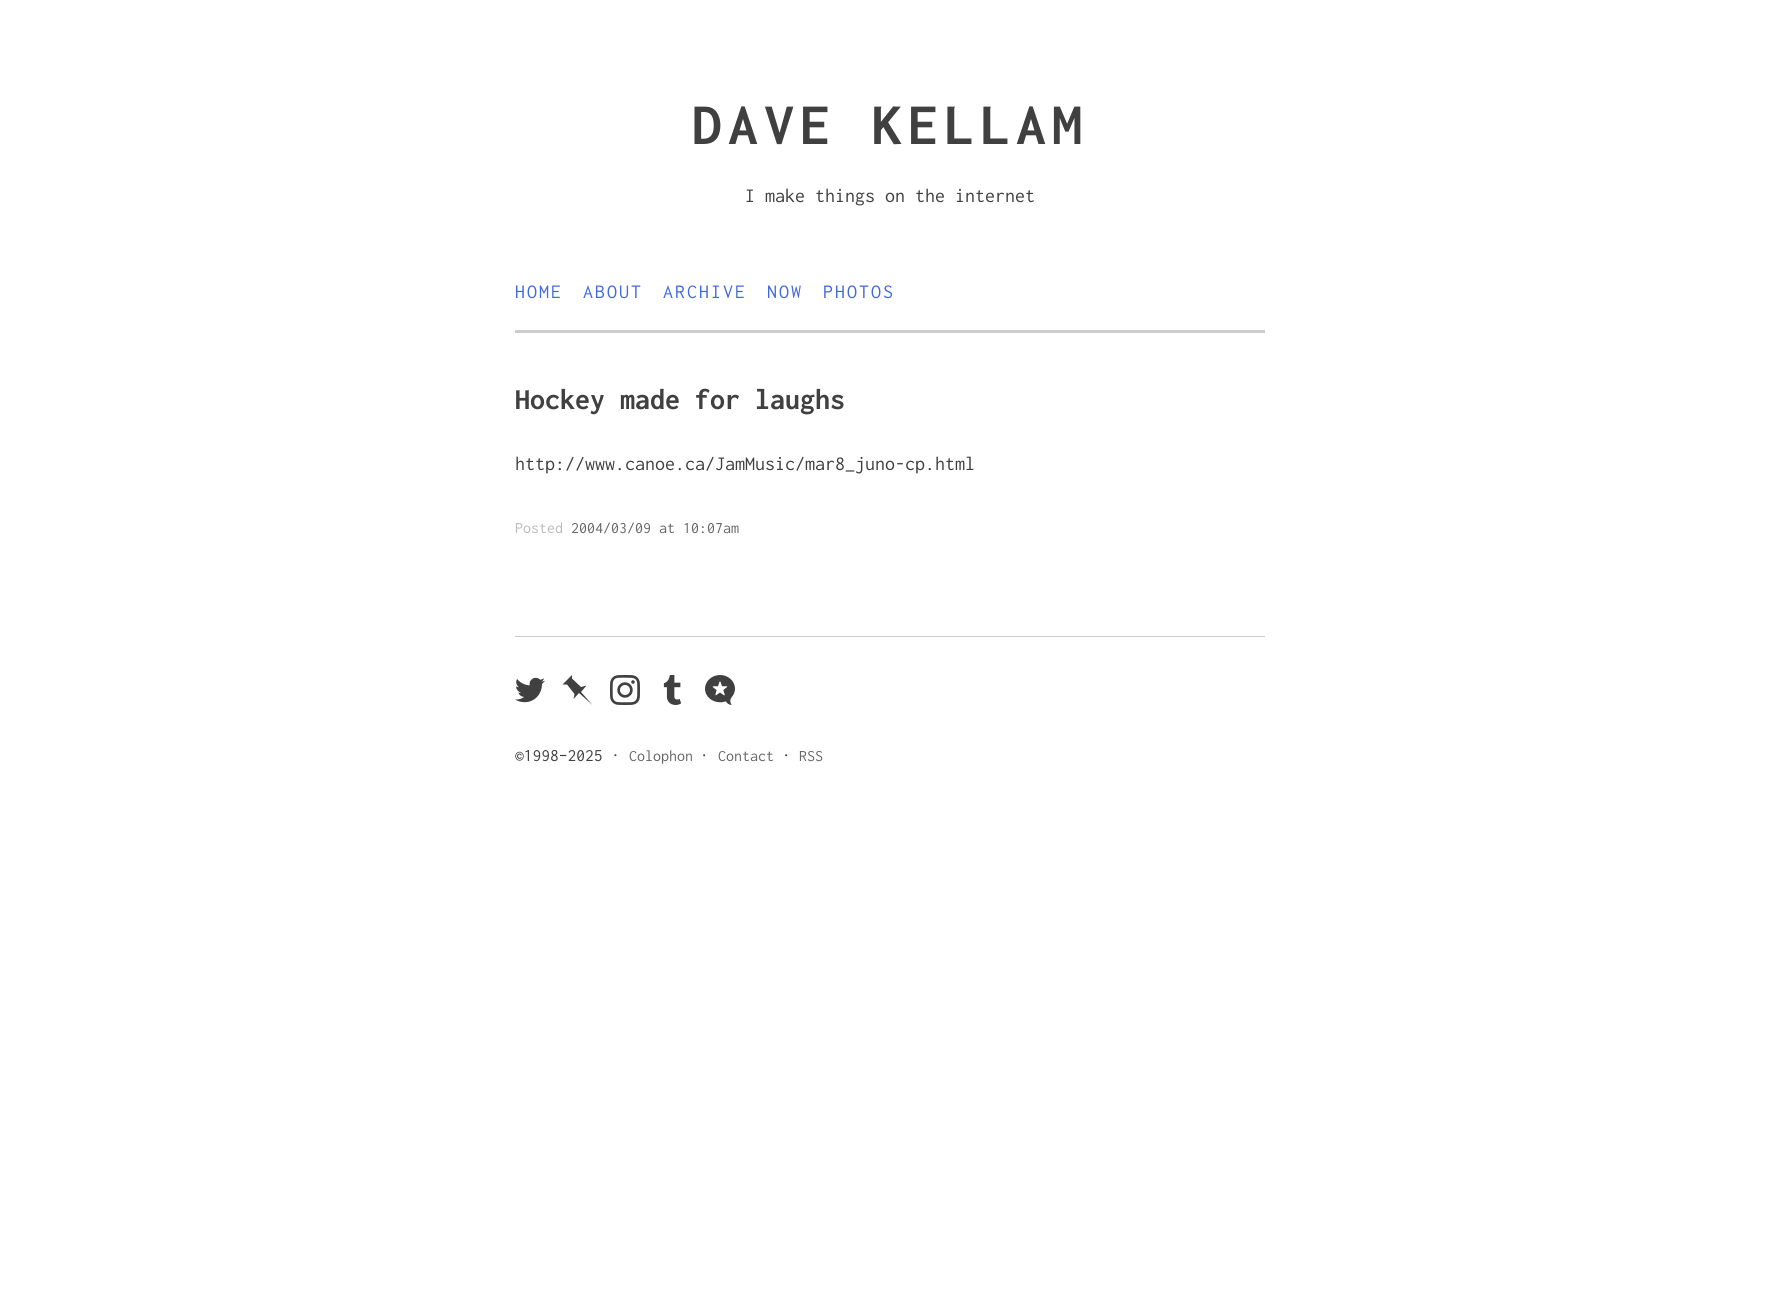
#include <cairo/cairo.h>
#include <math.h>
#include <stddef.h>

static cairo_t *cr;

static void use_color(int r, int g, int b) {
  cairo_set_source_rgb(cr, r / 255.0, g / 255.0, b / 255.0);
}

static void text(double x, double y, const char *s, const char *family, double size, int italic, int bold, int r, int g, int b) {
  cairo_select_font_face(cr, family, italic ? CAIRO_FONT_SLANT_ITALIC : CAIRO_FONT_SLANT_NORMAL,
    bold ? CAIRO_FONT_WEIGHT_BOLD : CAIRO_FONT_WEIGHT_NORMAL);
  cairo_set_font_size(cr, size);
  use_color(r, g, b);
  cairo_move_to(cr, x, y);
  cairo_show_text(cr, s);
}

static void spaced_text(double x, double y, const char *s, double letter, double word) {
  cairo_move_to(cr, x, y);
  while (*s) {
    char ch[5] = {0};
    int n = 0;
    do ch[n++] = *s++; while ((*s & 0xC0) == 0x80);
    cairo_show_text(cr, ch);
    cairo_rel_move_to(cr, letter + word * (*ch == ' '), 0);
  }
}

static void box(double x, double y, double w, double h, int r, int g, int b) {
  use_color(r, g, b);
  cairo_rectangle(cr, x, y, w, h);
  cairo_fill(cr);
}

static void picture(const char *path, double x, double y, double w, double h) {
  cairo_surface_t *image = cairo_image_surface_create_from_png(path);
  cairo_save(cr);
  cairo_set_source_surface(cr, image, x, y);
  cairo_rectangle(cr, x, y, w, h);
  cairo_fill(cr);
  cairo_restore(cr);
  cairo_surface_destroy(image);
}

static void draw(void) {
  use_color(255, 255, 255);
  cairo_paint(cr);
  box(515, 330, 750, 3, 204, 204, 204);
  box(515, 636, 750, 1, 204, 204, 204);
  picture("img_01.png", 515, 677, 30, 26);
  use_color(64, 64, 64);
  cairo_new_path(cr);
  cairo_move_to(cr, 579, 693);
  cairo_line_to(cr, 573.5, 699);
  cairo_line_to(cr, 574.5, 694);
  cairo_line_to(cr, 567, 684.5);
  cairo_line_to(cr, 562.5, 684.5);
  cairo_line_to(cr, 572, 675);
  cairo_line_to(cr, 572, 678.5);
  cairo_line_to(cr, 581, 687);
  cairo_line_to(cr, 586.5, 685.5);
  cairo_line_to(cr, 581, 692);
  cairo_line_to(cr, 592.5, 705);
  cairo_close_path(cr);
  cairo_fill(cr);
  picture("img_02.png", 610, 675, 30, 30);
  picture("img_03.png", 663, 675, 19, 30);
  picture("img_04.png", 705, 675, 30, 30);
  cairo_select_font_face(cr, "Inconsolata", CAIRO_FONT_SLANT_NORMAL, CAIRO_FONT_WEIGHT_BOLD);
  cairo_set_font_size(cr, 60);
  spaced_text(692, 144, "DAVE KELLAM", 6, 0);
  text(745, 202, "I make things on the internet", "Inconsolata", 20, 0, 0, 64, 64, 64);
  use_color(65, 105, 225);
  spaced_text(515, 298, "HOME", 2, 0);
  spaced_text(583, 298, "ABOUT", 2, 0);
  spaced_text(663, 298, "ARCHIVE", 2, 0);
  spaced_text(767, 298, "NOW", 2, 0);
  spaced_text(823, 298, "PHOTOS", 2, 0);
  text(515, 409, "Hockey made for laughs", "Inconsolata", 30, 0, 1, 64, 64, 64);
  text(515, 470, "http://www.canoe.ca/JamMusic/mar8_juno-cp.html", "Inconsolata", 20, 0, 0, 64, 64, 64);
  text(515, 533, "Posted", "Inconsolata", 16, 0, 0, 187, 187, 187);
  text(571, 533, "2004/03/09 at 10:07am", "Inconsolata", 16, 0, 0, 102, 102, 102);
  text(515, 761, "©1998–2025 ·", "Inconsolata", 17.5, 0, 0, 64, 64, 64);
  text(629, 761, "Colophon", "Inconsolata", 16, 0, 0, 102, 102, 102);
  text(700, 761, "·", "Inconsolata", 17.5, 0, 0, 64, 64, 64);
  text(718, 761, "Contact", "Inconsolata", 16, 0, 0, 102, 102, 102);
  text(782, 761, "·", "Inconsolata", 17.5, 0, 0, 64, 64, 64);
  text(799, 761, "RSS", "Inconsolata", 16, 0, 0, 102, 102, 102);
}

int main(void) {
  cairo_surface_t *surface = cairo_image_surface_create(CAIRO_FORMAT_RGB24, 1780, 1297);
  cr = cairo_create(surface);
  cairo_font_options_t *options = cairo_font_options_create();
  cairo_font_options_set_hint_metrics(options, CAIRO_HINT_METRICS_OFF);
  cairo_font_options_set_hint_style(options, CAIRO_HINT_STYLE_NONE);
  cairo_set_font_options(cr, options);
  cairo_set_miter_limit(cr, 4);
  draw();
  cairo_surface_write_to_png(surface, "out.png");
  cairo_font_options_destroy(options);
  cairo_destroy(cr);
  cairo_surface_destroy(surface);
  return 0;
}
